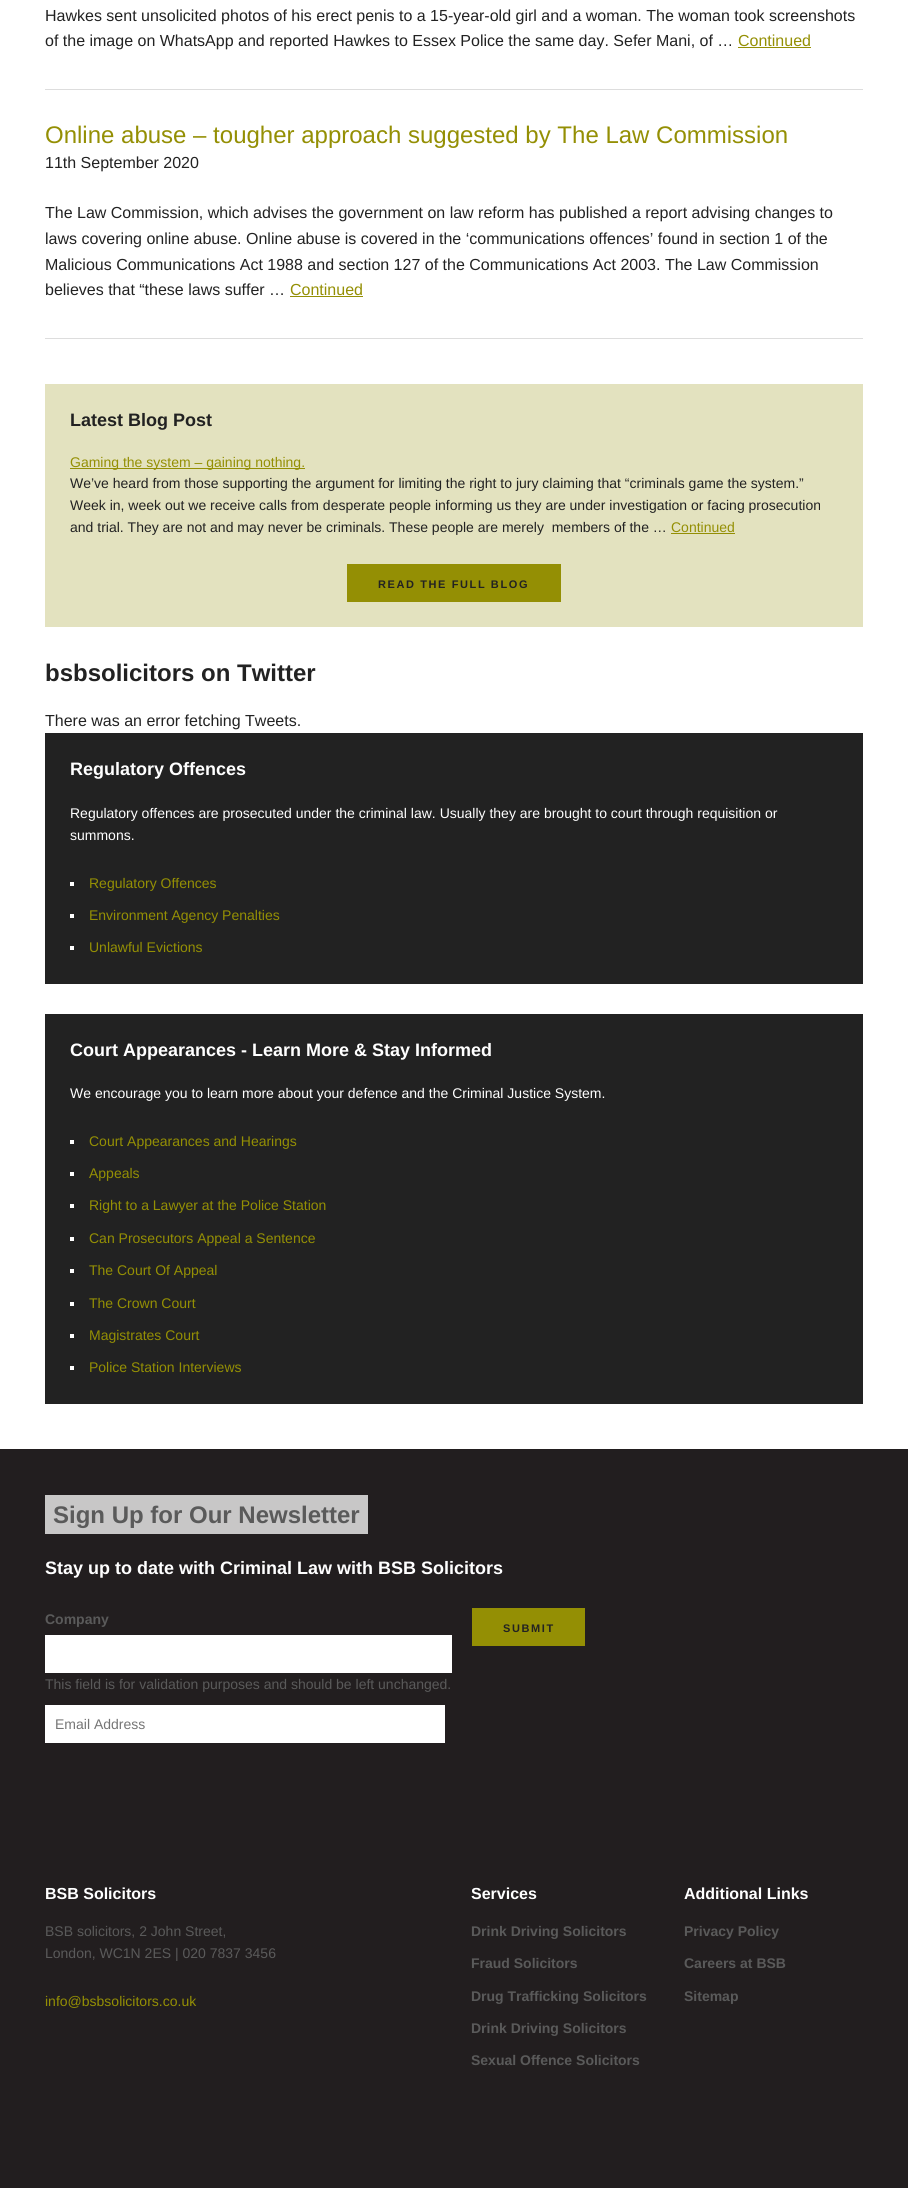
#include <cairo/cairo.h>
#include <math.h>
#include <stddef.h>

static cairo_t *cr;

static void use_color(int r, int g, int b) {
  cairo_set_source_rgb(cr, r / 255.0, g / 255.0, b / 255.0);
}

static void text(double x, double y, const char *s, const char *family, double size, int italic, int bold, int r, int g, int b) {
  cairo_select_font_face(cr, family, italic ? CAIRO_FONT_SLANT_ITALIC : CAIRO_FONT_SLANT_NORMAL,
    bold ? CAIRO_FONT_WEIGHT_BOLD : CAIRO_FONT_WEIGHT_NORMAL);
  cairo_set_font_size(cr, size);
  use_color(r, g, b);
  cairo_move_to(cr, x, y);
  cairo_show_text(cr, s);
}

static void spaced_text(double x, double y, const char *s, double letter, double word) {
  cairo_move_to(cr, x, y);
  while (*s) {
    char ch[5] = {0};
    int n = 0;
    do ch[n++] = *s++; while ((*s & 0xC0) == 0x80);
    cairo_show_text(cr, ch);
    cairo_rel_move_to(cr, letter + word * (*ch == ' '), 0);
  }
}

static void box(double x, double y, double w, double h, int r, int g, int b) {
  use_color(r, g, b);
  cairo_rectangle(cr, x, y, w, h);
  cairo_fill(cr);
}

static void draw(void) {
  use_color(34, 30, 31);
  cairo_paint(cr);
  box(0, 0, 908, 1449, 255, 255, 255);
  box(45, 89, 818, 1, 221, 221, 221);
  box(738, 47, 73, 1, 148, 143, 4);
  box(45, 338, 818, 1, 221, 221, 221);
  box(290, 296, 73, 1, 148, 143, 4);
  box(45, 384, 818, 243, 227, 226, 191);
  box(70, 468, 235, 1, 148, 143, 4);
  box(671, 533, 64, 1, 148, 143, 4);
  box(347, 564, 214, 38, 148, 143, 4);
  box(45, 733, 818, 251, 34, 34, 34);
  box(70, 882, 4, 4, 255, 255, 255);
  box(70, 914, 4, 4, 255, 255, 255);
  box(70, 946, 4, 4, 255, 255, 255);
  box(45, 1014, 818, 390, 34, 34, 34);
  box(70, 1140, 4, 4, 255, 255, 255);
  box(70, 1172, 4, 4, 255, 255, 255);
  box(70, 1204, 4, 4, 255, 255, 255);
  box(70, 1237, 4, 4, 255, 255, 255);
  box(70, 1269, 4, 4, 255, 255, 255);
  box(70, 1302, 4, 4, 255, 255, 255);
  box(70, 1334, 4, 4, 255, 255, 255);
  box(70, 1366, 4, 4, 255, 255, 255);
  box(45, 1495, 323, 39, 200, 199, 199);
  box(45, 1635, 407, 38, 255, 255, 255);
  box(45, 1705, 400, 38, 255, 255, 255);
  box(472, 1608, 113, 38, 148, 143, 4);
  text(45, 21, "Hawkes sent unsolicited photos of his erect penis to a 15-year-old girl and a woman. The woman took screenshots", "Liberation Sans", 16, 0, 0, 34, 34, 34);
  text(45, 46, "of the image on WhatsApp and reported Hawkes to Essex Police the same day. Sefer Mani, of …", "Liberation Sans", 16, 0, 0, 34, 34, 34);
  text(738, 46, "Continued", "Liberation Sans", 16, 0, 0, 148, 143, 4);
  text(45, 143, "Online abuse – tougher approach suggested by The Law Commission", "Liberation Sans", 24, 0, 0, 148, 143, 4);
  text(45, 168, "11th September 2020", "Liberation Sans", 16, 0, 0, 34, 34, 34);
  text(45, 218, "The Law Commission, which advises the government on law reform has published a report advising changes to", "Liberation Sans", 16, 0, 0, 34, 34, 34);
  text(45, 244, "laws covering online abuse. Online abuse is covered in the ‘communications offences’ found in section 1 of the", "Liberation Sans", 16, 0, 0, 34, 34, 34);
  text(45, 270, "Malicious Communications Act 1988 and section 127 of the Communications Act 2003. The Law Commission", "Liberation Sans", 16, 0, 0, 34, 34, 34);
  text(45, 295, "believes that “these laws suffer …", "Liberation Sans", 16, 0, 0, 34, 34, 34);
  text(290, 295, "Continued", "Liberation Sans", 16, 0, 0, 148, 143, 4);
  text(70, 426, "Latest Blog Post", "Liberation Sans", 18, 0, 1, 34, 34, 34);
  text(70, 467, "Gaming the system – gaining nothing.", "Liberation Sans", 14, 0, 0, 148, 143, 4);
  text(70, 488, "We’ve heard from those supporting the argument for limiting the right to jury claiming that “criminals game the system.”", "Liberation Sans", 14, 0, 0, 34, 34, 34);
  text(70, 510, "Week in, week out we receive calls from desperate people informing us they are under investigation or facing prosecution", "Liberation Sans", 14, 0, 0, 34, 34, 34);
  text(70, 532, "and trial. They are not and may never be criminals. These people are merely  members of the …", "Liberation Sans", 14, 0, 0, 34, 34, 34);
  text(671, 532, "Continued", "Liberation Sans", 14, 0, 0, 148, 143, 4);
  cairo_select_font_face(cr, "Liberation Sans", CAIRO_FONT_SLANT_NORMAL, CAIRO_FONT_WEIGHT_BOLD);
  cairo_set_font_size(cr, 11);
  use_color(34, 34, 34);
  spaced_text(378, 588, "READ THE FULL BLOG", 1.6, 0);
  text(45, 681, "bsbsolicitors on Twitter", "Liberation Sans", 24, 0, 1, 34, 34, 34);
  text(45, 726, "There was an error fetching Tweets.", "Liberation Sans", 16, 0, 0, 34, 34, 34);
  text(70, 775, "Regulatory Offences", "Liberation Sans", 18, 0, 1, 255, 255, 255);
  text(70, 818, "Regulatory offences are prosecuted under the criminal law. Usually they are brought to court through requisition or", "Liberation Sans", 14, 0, 0, 255, 255, 255);
  text(70, 840, "summons.", "Liberation Sans", 14, 0, 0, 255, 255, 255);
  text(89, 888, "Regulatory Offences", "Liberation Sans", 14, 0, 0, 148, 143, 4);
  text(89, 920, "Environment Agency Penalties", "Liberation Sans", 14, 0, 0, 148, 143, 4);
  text(89, 952, "Unlawful Evictions", "Liberation Sans", 14, 0, 0, 148, 143, 4);
  text(70, 1056, "Court Appearances - Learn More & Stay Informed", "Liberation Sans", 18, 0, 1, 255, 255, 255);
  text(70, 1098, "We encourage you to learn more about your defence and the Criminal Justice System.", "Liberation Sans", 14, 0, 0, 255, 255, 255);
  text(89, 1146, "Court Appearances and Hearings", "Liberation Sans", 14, 0, 0, 148, 143, 4);
  text(89, 1178, "Appeals", "Liberation Sans", 14, 0, 0, 148, 143, 4);
  text(89, 1210, "Right to a Lawyer at the Police Station", "Liberation Sans", 14, 0, 0, 148, 143, 4);
  text(89, 1243, "Can Prosecutors Appeal a Sentence", "Liberation Sans", 14, 0, 0, 148, 143, 4);
  text(89, 1275, "The Court Of Appeal", "Liberation Sans", 14, 0, 0, 148, 143, 4);
  text(89, 1308, "The Crown Court", "Liberation Sans", 14, 0, 0, 148, 143, 4);
  text(89, 1340, "Magistrates Court", "Liberation Sans", 14, 0, 0, 148, 143, 4);
  text(89, 1372, "Police Station Interviews", "Liberation Sans", 14, 0, 0, 148, 143, 4);
  text(53, 1523, "Sign Up for Our Newsletter", "Liberation Sans", 24, 0, 1, 90, 90, 90);
  text(45, 1574, "Stay up to date with Criminal Law with BSB Solicitors", "Liberation Sans", 18, 0, 1, 255, 255, 255);
  text(45, 1624, "Company", "Liberation Sans", 14, 0, 1, 90, 90, 90);
  text(45, 1689, "This field is for validation purposes and should be left unchanged.", "Liberation Sans", 14, 0, 0, 90, 90, 90);
  text(55, 1729, "Email Address", "Liberation Sans", 14, 0, 0, 117, 117, 117);
  cairo_select_font_face(cr, "Liberation Sans", CAIRO_FONT_SLANT_NORMAL, CAIRO_FONT_WEIGHT_BOLD);
  cairo_set_font_size(cr, 11);
  use_color(34, 34, 34);
  spaced_text(503, 1632, "SUBMIT", 1.6, 0);
  text(45, 1899, "BSB Solicitors", "Liberation Sans", 16, 0, 1, 255, 255, 255);
  text(45, 1936, "BSB solicitors, 2 John Street,", "Liberation Sans", 14, 0, 0, 90, 90, 90);
  text(45, 1958, "London, WC1N 2ES | 020 7837 3456", "Liberation Sans", 14, 0, 0, 90, 90, 90);
  text(45, 2006, "info@bsbsolicitors.co.uk", "Liberation Sans", 14, 0, 0, 148, 143, 4);
  text(471, 1899, "Services", "Liberation Sans", 16, 0, 1, 255, 255, 255);
  text(471, 1936, "Drink Driving Solicitors", "Liberation Sans", 14, 0, 1, 90, 90, 90);
  text(471, 1968, "Fraud Solicitors", "Liberation Sans", 14, 0, 1, 90, 90, 90);
  text(471, 2001, "Drug Trafficking Solicitors", "Liberation Sans", 14, 0, 1, 90, 90, 90);
  text(471, 2033, "Drink Driving Solicitors", "Liberation Sans", 14, 0, 1, 90, 90, 90);
  text(471, 2065, "Sexual Offence Solicitors", "Liberation Sans", 14, 0, 1, 90, 90, 90);
  text(684, 1899, "Additional Links", "Liberation Sans", 16, 0, 1, 255, 255, 255);
  text(684, 1936, "Privacy Policy", "Liberation Sans", 14, 0, 1, 90, 90, 90);
  text(684, 1968, "Careers at BSB", "Liberation Sans", 14, 0, 1, 90, 90, 90);
  text(684, 2001, "Sitemap", "Liberation Sans", 14, 0, 1, 90, 90, 90);
}

int main(void) {
  cairo_surface_t *surface = cairo_image_surface_create(CAIRO_FORMAT_RGB24, 908, 2188);
  cr = cairo_create(surface);
  cairo_font_options_t *options = cairo_font_options_create();
  cairo_font_options_set_hint_metrics(options, CAIRO_HINT_METRICS_OFF);
  cairo_font_options_set_hint_style(options, CAIRO_HINT_STYLE_NONE);
  cairo_set_font_options(cr, options);
  cairo_set_miter_limit(cr, 4);
  draw();
  cairo_surface_write_to_png(surface, "out.png");
  cairo_font_options_destroy(options);
  cairo_destroy(cr);
  cairo_surface_destroy(surface);
  return 0;
}
